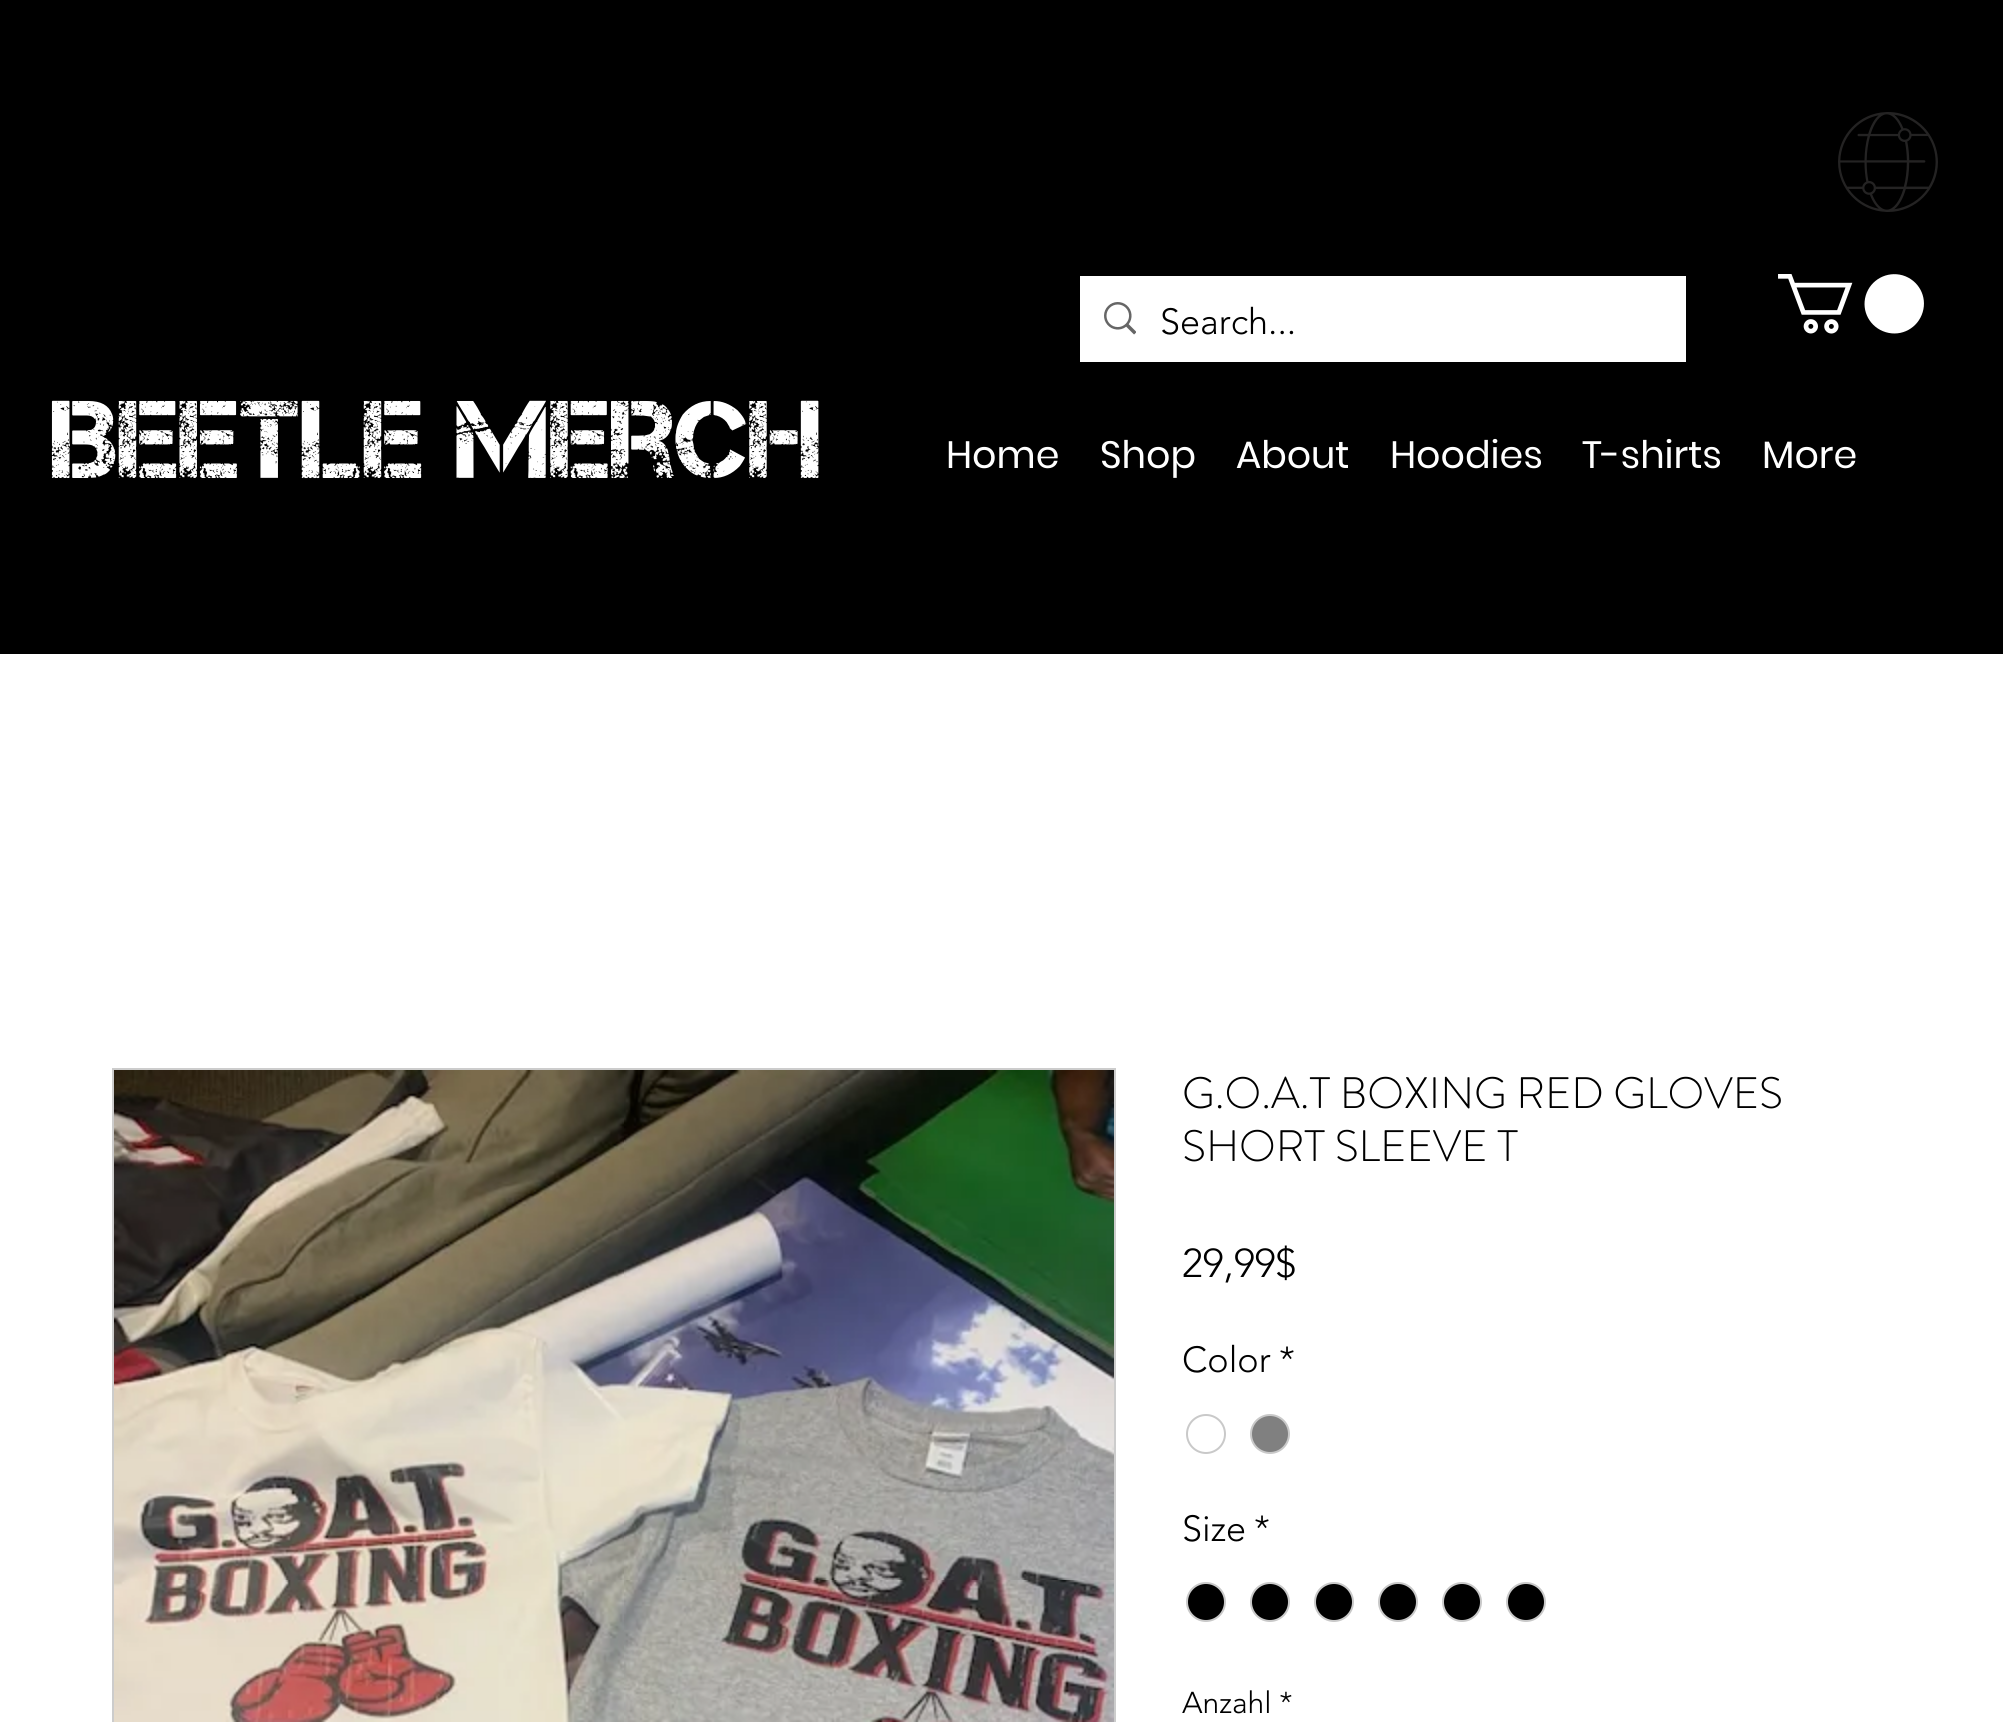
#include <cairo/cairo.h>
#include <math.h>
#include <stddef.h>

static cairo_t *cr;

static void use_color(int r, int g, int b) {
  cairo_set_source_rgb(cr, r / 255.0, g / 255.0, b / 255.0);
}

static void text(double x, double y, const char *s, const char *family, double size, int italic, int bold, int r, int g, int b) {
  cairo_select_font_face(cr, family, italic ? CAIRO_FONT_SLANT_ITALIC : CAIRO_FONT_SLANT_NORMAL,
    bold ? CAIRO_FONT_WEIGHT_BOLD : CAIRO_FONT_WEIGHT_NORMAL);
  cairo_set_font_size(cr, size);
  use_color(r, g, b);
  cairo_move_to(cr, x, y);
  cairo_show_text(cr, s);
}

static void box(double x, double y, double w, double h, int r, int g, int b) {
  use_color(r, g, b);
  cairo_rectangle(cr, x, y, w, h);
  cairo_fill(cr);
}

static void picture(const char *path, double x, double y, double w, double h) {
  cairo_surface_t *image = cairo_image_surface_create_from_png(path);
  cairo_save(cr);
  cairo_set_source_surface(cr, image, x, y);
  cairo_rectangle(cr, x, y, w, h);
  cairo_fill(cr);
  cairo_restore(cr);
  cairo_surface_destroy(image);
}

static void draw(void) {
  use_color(255, 255, 255);
  cairo_paint(cr);
  box(0, 0, 2003, 654, 0, 0, 0);
  picture("img_01.png", 1838, 112, 100, 100);
  box(1080, 276, 606, 86, 255, 255, 255);
  picture("img_02.png", 1104, 302, 32, 33);
  picture("img_03.png", 1778, 274, 146, 60);
  cairo_rectangle(cr, 113, 1069, 1002, 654);
  use_color(204, 204, 204);
  cairo_stroke(cr);
  picture("img_04.png", 114, 1070, 1000, 652);
  cairo_arc(cr, 1206, 1434, 19, 0, 2 * M_PI);
  use_color(201, 201, 201);
  cairo_stroke(cr);
  use_color(128, 128, 128);
  cairo_arc(cr, 1270, 1434, 19, 0, 2 * M_PI);
  cairo_fill_preserve(cr);
  use_color(201, 201, 201);
  cairo_stroke(cr);
  use_color(0, 0, 0);
  cairo_arc(cr, 1206, 1602, 19, 0, 2 * M_PI);
  cairo_fill_preserve(cr);
  use_color(201, 201, 201);
  cairo_stroke(cr);
  use_color(0, 0, 0);
  cairo_arc(cr, 1270, 1602, 19, 0, 2 * M_PI);
  cairo_fill_preserve(cr);
  use_color(201, 201, 201);
  cairo_stroke(cr);
  use_color(0, 0, 0);
  cairo_arc(cr, 1334, 1602, 19, 0, 2 * M_PI);
  cairo_fill_preserve(cr);
  use_color(201, 201, 201);
  cairo_stroke(cr);
  use_color(0, 0, 0);
  cairo_arc(cr, 1398, 1602, 19, 0, 2 * M_PI);
  cairo_fill_preserve(cr);
  use_color(201, 201, 201);
  cairo_stroke(cr);
  use_color(0, 0, 0);
  cairo_arc(cr, 1462, 1602, 19, 0, 2 * M_PI);
  cairo_fill_preserve(cr);
  use_color(201, 201, 201);
  cairo_stroke(cr);
  use_color(0, 0, 0);
  cairo_arc(cr, 1526, 1602, 19, 0, 2 * M_PI);
  cairo_fill_preserve(cr);
  use_color(201, 201, 201);
  cairo_stroke(cr);
  text(1160, 334, "Search...", "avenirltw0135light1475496 Light", 36, 0, 0, 0, 0, 0);
  text(52, 478, "Beetle Merch", "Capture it", 110, 0, 0, 255, 255, 255);
  text(946, 468, "Home", "Poppins", 38, 0, 0, 255, 255, 255);
  text(1100, 468, "Shop", "Poppins", 38, 0, 0, 255, 255, 255);
  text(1236, 468, "About", "Poppins", 38, 0, 0, 255, 255, 255);
  text(1390, 468, "Hoodies", "Poppins", 38, 0, 0, 255, 255, 255);
  text(1582, 468, "T-shirts", "Poppins", 38, 0, 0, 255, 255, 255);
  text(1762, 468, "More", "Poppins", 38, 0, 0, 255, 255, 255);
  text(1182, 1108, "G.O.A.T BOXING RED GLOVES", "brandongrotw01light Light", 44, 0, 0, 0, 0, 0);
  text(1182, 1161, "SHORT SLEEVE T", "brandongrotw01light Light", 44, 0, 0, 0, 0, 0);
  text(1182, 1277, "29,99$", "avenirltw0135light1475496 Light", 40, 0, 0, 0, 0, 0);
  text(1182, 1372, "Color", "avenirltw0135light1475496 Light", 36, 0, 0, 0, 0, 0);
  text(1279, 1372, "*", "avenirltw0135light1475496 Light", 36, 0, 0, 0, 0, 0);
  text(1182, 1541, "Size", "avenirltw0135light1475496 Light", 36, 0, 0, 0, 0, 0);
  text(1254, 1541, "*", "avenirltw0135light1475496 Light", 36, 0, 0, 0, 0, 0);
  text(1182, 1713, "Anzahl *", "avenirltw0135light1475496 Light", 30, 0, 0, 0, 0, 0);
}

int main(void) {
  cairo_surface_t *surface = cairo_image_surface_create(CAIRO_FORMAT_RGB24, 2003, 1722);
  cr = cairo_create(surface);
  cairo_font_options_t *options = cairo_font_options_create();
  cairo_font_options_set_hint_metrics(options, CAIRO_HINT_METRICS_OFF);
  cairo_font_options_set_hint_style(options, CAIRO_HINT_STYLE_NONE);
  cairo_set_font_options(cr, options);
  cairo_set_miter_limit(cr, 4);
  draw();
  cairo_surface_write_to_png(surface, "out.png");
  cairo_font_options_destroy(options);
  cairo_destroy(cr);
  cairo_surface_destroy(surface);
  return 0;
}
